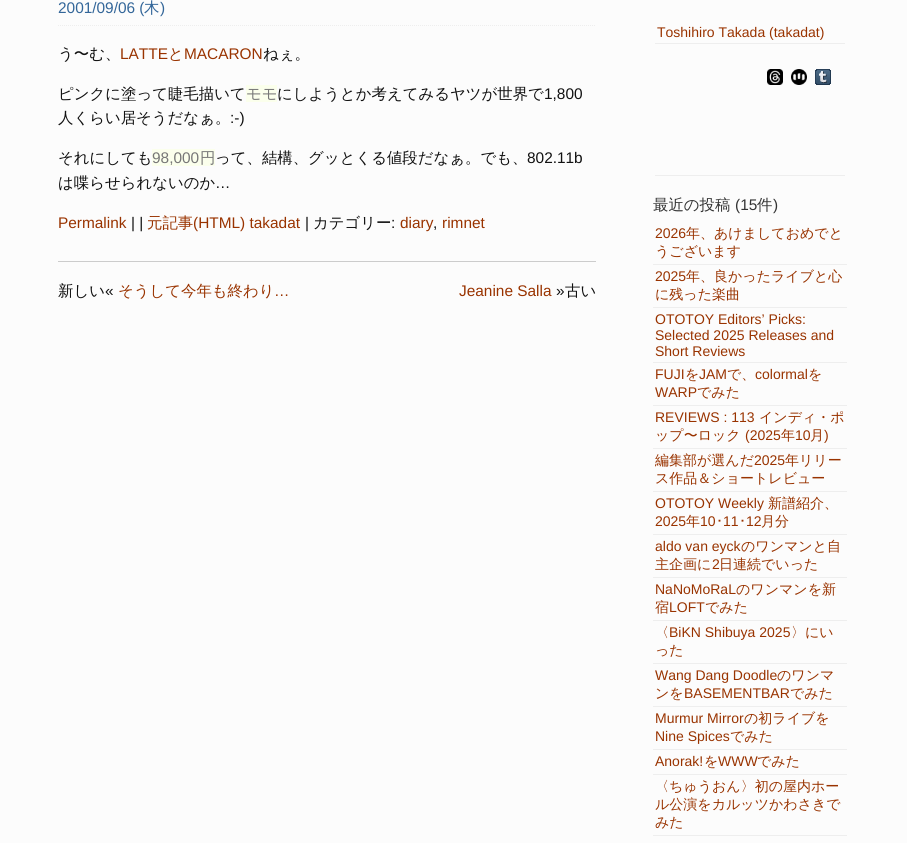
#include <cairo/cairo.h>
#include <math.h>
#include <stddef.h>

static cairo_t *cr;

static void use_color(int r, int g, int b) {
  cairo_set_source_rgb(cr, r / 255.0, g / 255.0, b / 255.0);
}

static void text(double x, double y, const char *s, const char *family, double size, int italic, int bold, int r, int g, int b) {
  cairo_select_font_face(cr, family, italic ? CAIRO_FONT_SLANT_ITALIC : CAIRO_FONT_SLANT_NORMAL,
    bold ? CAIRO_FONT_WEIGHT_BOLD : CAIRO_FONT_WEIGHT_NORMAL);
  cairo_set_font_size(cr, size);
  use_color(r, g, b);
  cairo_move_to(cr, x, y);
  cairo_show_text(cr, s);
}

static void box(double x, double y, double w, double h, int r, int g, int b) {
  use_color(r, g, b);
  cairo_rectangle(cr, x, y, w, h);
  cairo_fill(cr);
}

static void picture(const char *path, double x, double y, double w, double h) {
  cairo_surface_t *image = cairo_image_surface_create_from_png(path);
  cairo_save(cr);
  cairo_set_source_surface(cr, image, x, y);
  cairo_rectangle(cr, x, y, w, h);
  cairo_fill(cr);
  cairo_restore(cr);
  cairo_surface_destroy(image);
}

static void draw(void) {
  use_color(252, 252, 252);
  cairo_paint(cr);
  cairo_new_path(cr);
  cairo_move_to(cr, 58, 25.5);
  cairo_line_to(cr, 596, 25.5);
  use_color(238, 238, 238);
  cairo_set_line_width(cr, 1);
  cairo_set_dash(cr, (double[]){1, 1}, 2, 0);
  cairo_stroke(cr);
  box(246, 85, 31, 17, 251, 255, 236);
  box(152, 149, 63, 17, 251, 255, 236);
  box(58, 261, 538, 1, 204, 204, 204);
  box(655, 43, 190, 1, 238, 238, 238);
  box(655, 175, 190, 1, 238, 238, 238);
  picture("img_01.png", 767, 69, 16, 16);
  picture("img_02.png", 791, 69, 16, 16);
  picture("img_03.png", 815, 69, 16, 16);
  box(653, 264, 194, 1, 238, 238, 238);
  box(653, 307, 194, 1, 238, 238, 238);
  box(653, 362, 194, 1, 238, 238, 238);
  box(653, 405, 194, 1, 238, 238, 238);
  box(653, 448, 194, 1, 238, 238, 238);
  box(653, 491, 194, 1, 238, 238, 238);
  box(653, 534, 194, 1, 238, 238, 238);
  box(653, 577, 194, 1, 238, 238, 238);
  box(653, 620, 194, 1, 238, 238, 238);
  box(653, 663, 194, 1, 238, 238, 238);
  box(653, 706, 194, 1, 238, 238, 238);
  box(653, 749, 194, 1, 238, 238, 238);
  box(653, 774, 194, 1, 238, 238, 238);
  box(653, 835, 194, 1, 238, 238, 238);
  text(58, 13, "2001/09/06 (", "Liberation Sans", 15.4, 0, 0, 51, 102, 153);
  text(144, 13, "木", "WenQuanYi Zen Hei Medium", 15.4, 0, 0, 51, 102, 153);
  text(160, 13, ")", "Liberation Sans", 15.4, 0, 0, 51, 102, 153);
  text(58, 59, "う〜む、", "WenQuanYi Zen Hei Medium", 15.4, 0, 0, 17, 17, 17);
  text(120, 59, "LATTE", "Liberation Sans", 15.4, 0, 0, 153, 51, 0);
  text(168, 59, "と", "WenQuanYi Zen Hei Medium", 15.4, 0, 0, 153, 51, 0);
  text(184, 59, "MACARON", "Liberation Sans", 15.4, 0, 0, 153, 51, 0);
  text(263, 59, "ねぇ。", "WenQuanYi Zen Hei Medium", 15.4, 0, 0, 17, 17, 17);
  text(58, 99, "ピンクに塗って睫毛描いて", "WenQuanYi Zen Hei Medium", 15.4, 0, 0, 17, 17, 17);
  text(246, 99, "モモ", "WenQuanYi Zen Hei Medium", 15.4, 0, 0, 119, 119, 119);
  text(277, 99, "にしようとか考えてみるヤツが世界で", "WenQuanYi Zen Hei Medium", 15.4, 0, 0, 17, 17, 17);
  text(544, 99, "1,800", "Liberation Sans", 15.4, 0, 0, 17, 17, 17);
  text(58, 123, "人くらい居そうだなぁ。", "WenQuanYi Zen Hei Medium", 15.4, 0, 0, 17, 17, 17);
  text(230, 123, ":-)", "Liberation Sans", 15.4, 0, 0, 17, 17, 17);
  text(58, 163, "それにしても", "WenQuanYi Zen Hei Medium", 15.4, 0, 0, 17, 17, 17);
  text(152, 163, "98,000", "Liberation Sans", 15.4, 0, 0, 119, 119, 119);
  text(200, 163, "円", "WenQuanYi Zen Hei Medium", 15.4, 0, 0, 119, 119, 119);
  text(215, 163, "って、結構、グッとくる値段だなぁ。でも、", "WenQuanYi Zen Hei Medium", 15.4, 0, 0, 17, 17, 17);
  text(527, 163, "802.11b", "Liberation Sans", 15.4, 0, 0, 17, 17, 17);
  text(58, 188, "は喋らせられないのか", "WenQuanYi Zen Hei Medium", 15.4, 0, 0, 17, 17, 17);
  text(215, 188, "…", "Liberation Sans", 15.4, 0, 0, 17, 17, 17);
  text(58, 228, "Permalink", "Liberation Sans", 15.4, 0, 0, 153, 51, 0);
  text(131, 228, "| |", "Liberation Sans", 15.4, 0, 0, 17, 17, 17);
  text(147, 228, "元記事", "WenQuanYi Zen Hei Medium", 15.4, 0, 0, 153, 51, 0);
  text(193, 228, "(HTML) takadat", "Liberation Sans", 15.4, 0, 0, 153, 51, 0);
  text(305, 228, "|", "Liberation Sans", 15.4, 0, 0, 17, 17, 17);
  text(313, 228, "カテゴリー", "WenQuanYi Zen Hei Medium", 15.4, 0, 0, 17, 17, 17);
  text(391, 228, ":", "Liberation Sans", 15.4, 0, 0, 17, 17, 17);
  text(400, 228, "diary", "Liberation Sans", 15.4, 0, 0, 153, 51, 0);
  text(433, 228, ",", "Liberation Sans", 15.4, 0, 0, 17, 17, 17);
  text(442, 228, "rimnet", "Liberation Sans", 15.4, 0, 0, 153, 51, 0);
  text(58, 296, "新しい", "WenQuanYi Zen Hei Medium", 15.4, 0, 0, 17, 17, 17);
  text(105, 296, "«", "Liberation Sans", 15.4, 0, 0, 17, 17, 17);
  text(118, 296, "そうして今年も終わり", "WenQuanYi Zen Hei Medium", 15.4, 0, 0, 153, 51, 0);
  text(274, 296, "…", "Liberation Sans", 15.4, 0, 0, 153, 51, 0);
  text(459, 296, "Jeanine Salla", "Liberation Sans", 15.4, 0, 0, 153, 51, 0);
  text(556, 296, "»", "Liberation Sans", 15.4, 0, 0, 17, 17, 17);
  text(565, 296, "古い", "WenQuanYi Zen Hei Medium", 15.4, 0, 0, 17, 17, 17);
  text(657, 37, "Toshihiro Takada (takadat)", "Liberation Sans", 14, 0, 0, 153, 51, 0);
  text(653, 210, "最近の投稿", "WenQuanYi Zen Hei Medium", 15.4, 0, 0, 51, 51, 51);
  text(735, 210, "(15", "Liberation Sans", 15.4, 0, 0, 51, 51, 51);
  text(757, 210, "件", "WenQuanYi Zen Hei Medium", 15.4, 0, 0, 51, 51, 51);
  text(773, 210, ")", "Liberation Sans", 15.4, 0, 0, 51, 51, 51);
  text(655, 238, "2026", "Liberation Sans", 14, 0, 0, 153, 51, 0);
  text(686, 238, "年、あけましておめでと", "WenQuanYi Zen Hei Medium", 14, 0, 0, 153, 51, 0);
  text(655, 256, "うございます", "WenQuanYi Zen Hei Medium", 14, 0, 0, 153, 51, 0);
  text(655, 281, "2025", "Liberation Sans", 14, 0, 0, 153, 51, 0);
  text(686, 281, "年、良かったライブと心", "WenQuanYi Zen Hei Medium", 14, 0, 0, 153, 51, 0);
  text(655, 299, "に残った楽曲", "WenQuanYi Zen Hei Medium", 14, 0, 0, 153, 51, 0);
  text(655, 324, "OTOTOY Editors’ Picks:", "Liberation Sans", 14, 0, 0, 153, 51, 0);
  text(655, 340, "Selected 2025 Releases and", "Liberation Sans", 14, 0, 0, 153, 51, 0);
  text(655, 356, "Short Reviews", "Liberation Sans", 14, 0, 0, 153, 51, 0);
  text(655, 379, "FUJI", "Liberation Sans", 14, 0, 0, 153, 51, 0);
  text(685, 379, "を", "WenQuanYi Zen Hei Medium", 14, 0, 0, 153, 51, 0);
  text(699, 379, "JAM", "Liberation Sans", 14, 0, 0, 153, 51, 0);
  text(727, 379, "で、", "WenQuanYi Zen Hei Medium", 14, 0, 0, 153, 51, 0);
  text(755, 379, "colormal", "Liberation Sans", 14, 0, 0, 153, 51, 0);
  text(808, 379, "を", "WenQuanYi Zen Hei Medium", 14, 0, 0, 153, 51, 0);
  text(655, 397, "WARP", "Liberation Sans", 14, 0, 0, 153, 51, 0);
  text(697, 397, "でみた", "WenQuanYi Zen Hei Medium", 14, 0, 0, 153, 51, 0);
  text(655, 422, "REVIEWS : 113", "Liberation Sans", 14, 0, 0, 153, 51, 0);
  text(759, 422, "インディ・ポ", "WenQuanYi Zen Hei Medium", 14, 0, 0, 153, 51, 0);
  text(655, 440, "ップ〜ロック", "WenQuanYi Zen Hei Medium", 14, 0, 0, 153, 51, 0);
  text(745, 440, "(2025", "Liberation Sans", 14, 0, 0, 153, 51, 0);
  text(781, 440, "年", "WenQuanYi Zen Hei Medium", 14, 0, 0, 153, 51, 0);
  text(795, 440, "10", "Liberation Sans", 14, 0, 0, 153, 51, 0);
  text(810, 440, "月", "WenQuanYi Zen Hei Medium", 14, 0, 0, 153, 51, 0);
  text(824, 440, ")", "Liberation Sans", 14, 0, 0, 153, 51, 0);
  text(655, 465, "編集部が選んだ", "WenQuanYi Zen Hei Medium", 14, 0, 0, 153, 51, 0);
  text(754, 465, "2025", "Liberation Sans", 14, 0, 0, 153, 51, 0);
  text(785, 465, "年リリー", "WenQuanYi Zen Hei Medium", 14, 0, 0, 153, 51, 0);
  text(655, 483, "ス作品＆ショートレビュー", "WenQuanYi Zen Hei Medium", 14, 0, 0, 153, 51, 0);
  text(655, 508, "OTOTOY Weekly", "Liberation Sans", 14, 0, 0, 153, 51, 0);
  text(768, 508, "新譜紹介、", "WenQuanYi Zen Hei Medium", 14, 0, 0, 153, 51, 0);
  text(655, 526, "2025", "Liberation Sans", 14, 0, 0, 153, 51, 0);
  text(686, 526, "年", "WenQuanYi Zen Hei Medium", 14, 0, 0, 153, 51, 0);
  text(700, 526, "10", "Liberation Sans", 14, 0, 0, 153, 51, 0);
  text(716, 526, "･", "IPAPGothic", 14, 0, 0, 153, 51, 0);
  text(723, 526, "11", "Liberation Sans", 14, 0, 0, 153, 51, 0);
  text(739, 526, "･", "IPAPGothic", 14, 0, 0, 153, 51, 0);
  text(746, 526, "12", "Liberation Sans", 14, 0, 0, 153, 51, 0);
  text(761, 526, "月分", "WenQuanYi Zen Hei Medium", 14, 0, 0, 153, 51, 0);
  text(655, 551, "aldo van eyck", "Liberation Sans", 14, 0, 0, 153, 51, 0);
  text(741, 551, "のワンマンと自", "WenQuanYi Zen Hei Medium", 14, 0, 0, 153, 51, 0);
  text(655, 569, "主企画に", "WenQuanYi Zen Hei Medium", 14, 0, 0, 153, 51, 0);
  text(712, 569, "2", "Liberation Sans", 14, 0, 0, 153, 51, 0);
  text(719, 569, "日連続でいった", "WenQuanYi Zen Hei Medium", 14, 0, 0, 153, 51, 0);
  text(655, 594, "NaNoMoRaL", "Liberation Sans", 14, 0, 0, 153, 51, 0);
  text(736, 594, "のワンマンを新", "WenQuanYi Zen Hei Medium", 14, 0, 0, 153, 51, 0);
  text(655, 612, "宿", "WenQuanYi Zen Hei Medium", 14, 0, 0, 153, 51, 0);
  text(669, 612, "LOFT", "Liberation Sans", 14, 0, 0, 153, 51, 0);
  text(705, 612, "でみた", "WenQuanYi Zen Hei Medium", 14, 0, 0, 153, 51, 0);
  text(655, 637, "〈", "WenQuanYi Zen Hei Medium", 14, 0, 0, 153, 51, 0);
  text(669, 637, "BiKN Shibuya 2025", "Liberation Sans", 14, 0, 0, 153, 51, 0);
  text(791, 637, "〉にい", "WenQuanYi Zen Hei Medium", 14, 0, 0, 153, 51, 0);
  text(655, 655, "った", "WenQuanYi Zen Hei Medium", 14, 0, 0, 153, 51, 0);
  text(655, 680, "Wang Dang Doodle", "Liberation Sans", 14, 0, 0, 153, 51, 0);
  text(777, 680, "のワンマ", "WenQuanYi Zen Hei Medium", 14, 0, 0, 153, 51, 0);
  text(655, 698, "ンを", "WenQuanYi Zen Hei Medium", 14, 0, 0, 153, 51, 0);
  text(684, 698, "BASEMENTBAR", "Liberation Sans", 14, 0, 0, 153, 51, 0);
  text(790, 698, "でみた", "WenQuanYi Zen Hei Medium", 14, 0, 0, 153, 51, 0);
  text(655, 723, "Murmur Mirror", "Liberation Sans", 14, 0, 0, 153, 51, 0);
  text(744, 723, "の初ライブを", "WenQuanYi Zen Hei Medium", 14, 0, 0, 153, 51, 0);
  text(655, 741, "Nine Spices", "Liberation Sans", 14, 0, 0, 153, 51, 0);
  text(730, 741, "でみた", "WenQuanYi Zen Hei Medium", 14, 0, 0, 153, 51, 0);
  text(655, 766, "Anorak!", "Liberation Sans", 14, 0, 0, 153, 51, 0);
  text(704, 766, "を", "WenQuanYi Zen Hei Medium", 14, 0, 0, 153, 51, 0);
  text(718, 766, "WWW", "Liberation Sans", 14, 0, 0, 153, 51, 0);
  text(757, 766, "でみた", "WenQuanYi Zen Hei Medium", 14, 0, 0, 153, 51, 0);
  text(655, 791, "〈ちゅうおん〉初の屋内ホー", "WenQuanYi Zen Hei Medium", 14, 0, 0, 153, 51, 0);
  text(655, 809, "ル公演をカルッツかわさきで", "WenQuanYi Zen Hei Medium", 14, 0, 0, 153, 51, 0);
  text(655, 827, "みた", "WenQuanYi Zen Hei Medium", 14, 0, 0, 153, 51, 0);
}

int main(void) {
  cairo_surface_t *surface = cairo_image_surface_create(CAIRO_FORMAT_RGB24, 907, 843);
  cr = cairo_create(surface);
  cairo_font_options_t *options = cairo_font_options_create();
  cairo_font_options_set_hint_metrics(options, CAIRO_HINT_METRICS_OFF);
  cairo_font_options_set_hint_style(options, CAIRO_HINT_STYLE_NONE);
  cairo_set_font_options(cr, options);
  cairo_set_miter_limit(cr, 4);
  draw();
  cairo_surface_write_to_png(surface, "out.png");
  cairo_font_options_destroy(options);
  cairo_destroy(cr);
  cairo_surface_destroy(surface);
  return 0;
}
